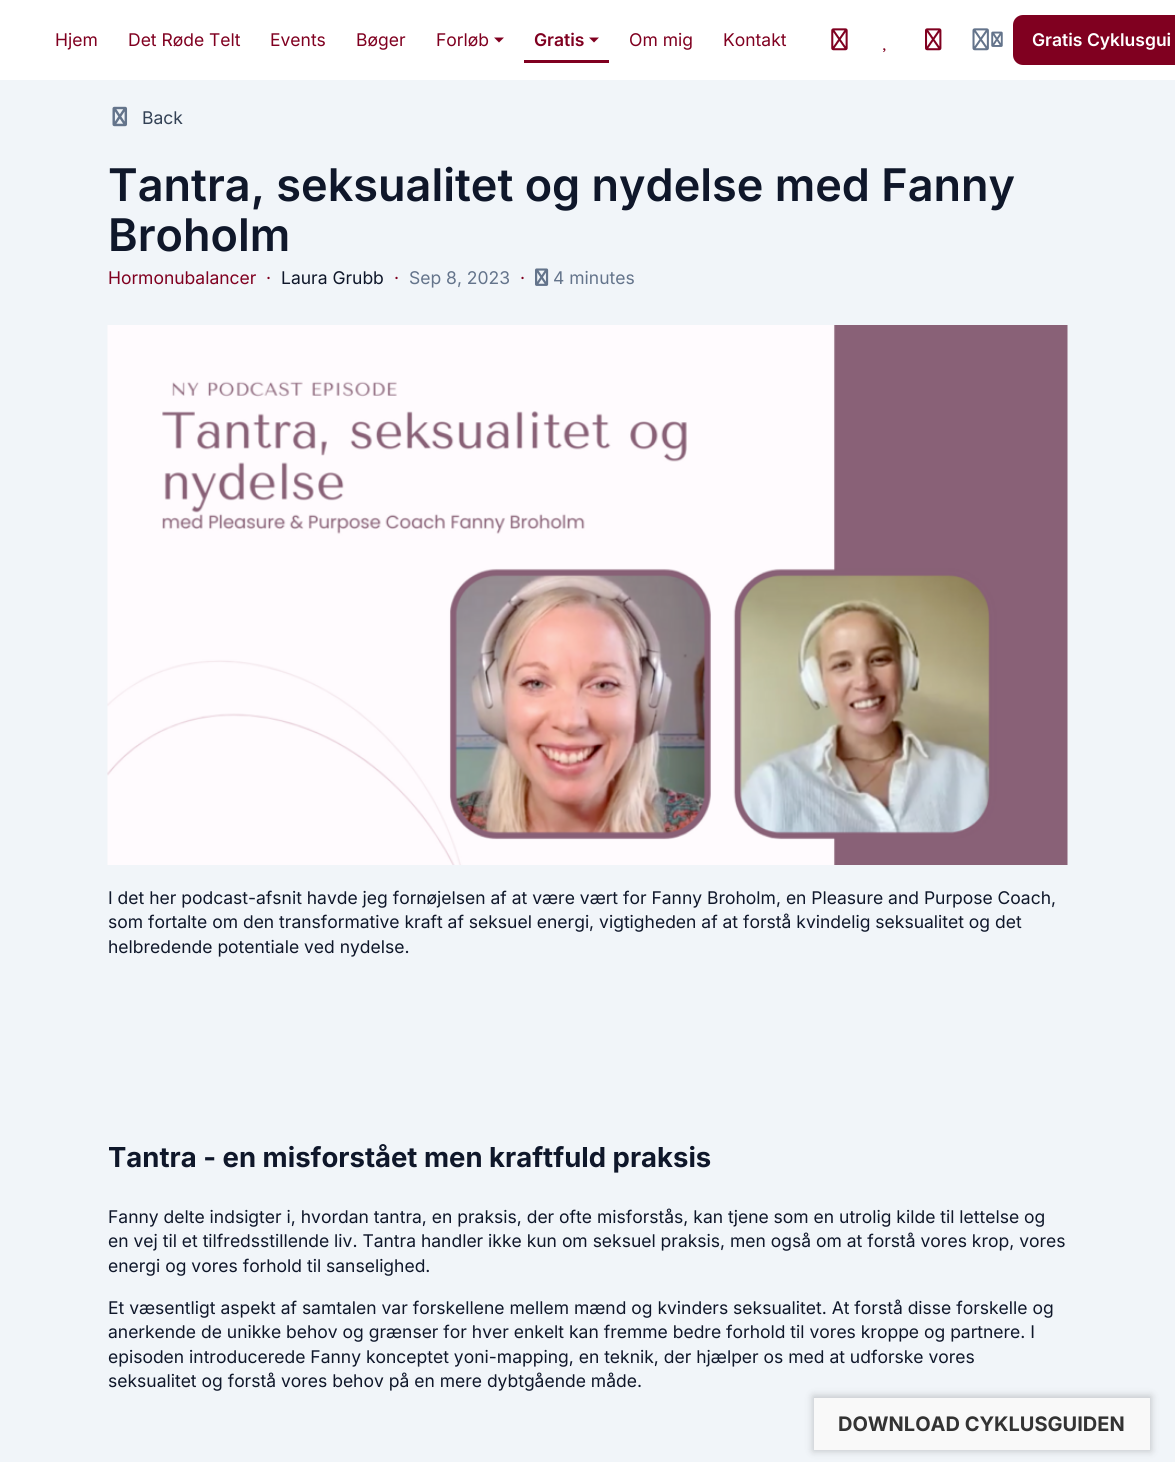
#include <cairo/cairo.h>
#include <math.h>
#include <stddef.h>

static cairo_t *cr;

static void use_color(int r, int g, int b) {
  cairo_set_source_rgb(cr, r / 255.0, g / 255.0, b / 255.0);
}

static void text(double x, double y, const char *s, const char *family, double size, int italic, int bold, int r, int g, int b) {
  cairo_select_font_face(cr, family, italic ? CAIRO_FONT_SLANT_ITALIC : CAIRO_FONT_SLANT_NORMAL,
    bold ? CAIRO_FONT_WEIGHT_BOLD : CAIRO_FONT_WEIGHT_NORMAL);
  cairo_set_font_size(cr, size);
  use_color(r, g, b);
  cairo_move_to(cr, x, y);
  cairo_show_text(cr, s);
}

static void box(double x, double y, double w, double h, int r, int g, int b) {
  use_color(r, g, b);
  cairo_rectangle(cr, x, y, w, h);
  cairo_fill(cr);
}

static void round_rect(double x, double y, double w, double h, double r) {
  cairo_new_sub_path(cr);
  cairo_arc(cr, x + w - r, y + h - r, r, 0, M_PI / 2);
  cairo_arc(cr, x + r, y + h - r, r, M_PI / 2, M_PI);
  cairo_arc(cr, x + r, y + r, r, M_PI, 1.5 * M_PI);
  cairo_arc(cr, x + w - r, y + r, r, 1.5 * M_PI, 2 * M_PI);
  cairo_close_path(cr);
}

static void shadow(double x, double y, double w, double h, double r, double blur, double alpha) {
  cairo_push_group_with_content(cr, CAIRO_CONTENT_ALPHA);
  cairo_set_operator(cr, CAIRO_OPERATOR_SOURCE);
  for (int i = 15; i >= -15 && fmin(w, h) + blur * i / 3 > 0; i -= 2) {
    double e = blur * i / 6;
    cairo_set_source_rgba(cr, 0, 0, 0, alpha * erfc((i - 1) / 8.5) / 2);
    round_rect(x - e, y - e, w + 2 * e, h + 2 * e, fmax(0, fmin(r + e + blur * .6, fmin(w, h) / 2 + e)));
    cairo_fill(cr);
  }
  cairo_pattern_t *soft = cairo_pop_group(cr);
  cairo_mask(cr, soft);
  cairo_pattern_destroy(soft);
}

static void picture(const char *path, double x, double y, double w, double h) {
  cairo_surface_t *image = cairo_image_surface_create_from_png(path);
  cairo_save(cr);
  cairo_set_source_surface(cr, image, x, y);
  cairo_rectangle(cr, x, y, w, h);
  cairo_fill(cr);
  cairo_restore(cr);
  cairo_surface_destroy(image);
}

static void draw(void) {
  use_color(241, 245, 249);
  cairo_paint(cr);
  box(0, 0, 1175, 80, 255, 255, 255);
  use_color(128, 0, 32);
  cairo_new_path(cr);
  cairo_move_to(cr, 494, 37.5);
  cairo_line_to(cr, 504, 37.5);
  cairo_line_to(cr, 499, 42.5);
  cairo_close_path(cr);
  cairo_fill(cr);
  cairo_new_path(cr);
  cairo_move_to(cr, 589, 37.5);
  cairo_line_to(cr, 599, 37.5);
  cairo_line_to(cr, 594, 42.5);
  cairo_close_path(cr);
  cairo_fill(cr);
  box(524, 60, 85, 3, 128, 0, 32);
  picture("img_01.png", 831, 28, 17, 23);
  picture("img_02.png", 925, 28, 17, 23);
  picture("img_03.png", 972, 28, 17, 23);
  picture("img_04.png", 991, 31, 12, 16);
  round_rect(1013, 15, 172, 50, 10);
  cairo_fill(cr);
  picture("img_05.png", 883, 48, 3, 5);
  picture("img_06.png", 112, 106, 16, 21);
  picture("img_07.png", 535, 268, 14, 18);
  picture("img_08.png", 107, 325, 961, 540);
  use_color(0, 0, 0);
  shadow(813, 1396, 338, 55, 0, 4, 0.2);
  box(814, 1398, 336, 52, 249, 249, 249);
  text(55, 46, "Hjem", "Inter", 17.5, 0, 0, 128, 0, 32);
  text(128, 46, "Det Røde Telt", "Inter", 17.5, 0, 0, 128, 0, 32);
  text(270, 46, "Events", "Inter", 17.5, 0, 0, 128, 0, 32);
  text(356, 46, "Bøger", "Inter", 17.5, 0, 0, 128, 0, 32);
  text(436, 46, "Forløb", "Inter", 17.5, 0, 0, 128, 0, 32);
  text(534, 46, "Gratis", "Inter SemiBold", 17.5, 0, 0, 128, 0, 32);
  text(629, 46, "Om mig", "Inter", 17.5, 0, 0, 128, 0, 32);
  text(723, 46, "Kontakt", "Inter", 17.5, 0, 0, 128, 0, 32);
  text(1032, 46, "Gratis Cyklusgui", "Inter SemiBold", 17.5, 0, 0, 255, 255, 255);
  text(142, 124, "Back", "Inter", 17.5, 0, 0, 51, 65, 85);
  text(108, 201, "Tantra, seksualitet og nydelse med Fanny", "Inter SemiBold", 45, 0, 0, 15, 23, 42);
  text(108, 251, "Broholm", "Inter SemiBold", 45, 0, 0, 15, 23, 42);
  text(108, 284, "Hormonubalancer", "Inter", 17.5, 0, 0, 128, 0, 32);
  text(266, 284, "·", "Inter", 17.5, 0, 0, 128, 0, 32);
  text(281, 284, "Laura Grubb", "Inter", 17.5, 0, 0, 15, 23, 42);
  text(394, 284, "·", "Inter", 17.5, 0, 0, 128, 0, 32);
  text(409, 284, "Sep 8, 2023", "Inter", 17.5, 0, 0, 100, 116, 139);
  text(520, 284, "·", "Inter", 17.5, 0, 0, 128, 0, 32);
  text(553, 284, "4 minutes", "Inter", 17.5, 0, 0, 100, 116, 139);
  text(108, 904, "I det her podcast-afsnit havde jeg fornøjelsen af at være vært for Fanny Broholm, en Pleasure and Purpose Coach,", "Inter", 17.5, 0, 0, 15, 23, 42);
  text(108, 928, "som fortalte om den transformative kraft af seksuel energi, vigtigheden af at forstå kvindelig seksualitet og det", "Inter", 17.5, 0, 0, 15, 23, 42);
  text(108, 953, "helbredende potentiale ved nydelse.", "Inter", 17.5, 0, 0, 15, 23, 42);
  text(108, 1167, "Tantra - en misforstået men kraftfuld praksis", "Inter", 27.5, 0, 1, 15, 23, 42);
  text(108, 1223, "Fanny delte indsigter i, hvordan tantra, en praksis, der ofte misforstås, kan tjene som en utrolig kilde til lettelse og", "Inter", 17.5, 0, 0, 15, 23, 42);
  text(108, 1247, "en vej til et tilfredsstillende liv. Tantra handler ikke kun om seksuel praksis, men også om at forstå vores krop, vores", "Inter", 17.5, 0, 0, 15, 23, 42);
  text(108, 1272, "energi og vores forhold til sanselighed.", "Inter", 17.5, 0, 0, 15, 23, 42);
  text(108, 1314, "Et væsentligt aspekt af samtalen var forskellene mellem mænd og kvinders seksualitet. At forstå disse forskelle og", "Inter", 17.5, 0, 0, 15, 23, 42);
  text(108, 1338, "anerkende de unikke behov og grænser for hver enkelt kan fremme bedre forhold til vores kroppe og partnere. I", "Inter", 17.5, 0, 0, 15, 23, 42);
  text(108, 1363, "episoden introducerede Fanny konceptet yoni-mapping, en teknik, der hjælper os med at udforske vores", "Inter", 17.5, 0, 0, 15, 23, 42);
  text(108, 1387, "seksualitet og forstå vores behov på en mere dybtgående måde.", "Inter", 17.5, 0, 0, 15, 23, 42);
  text(838, 1431, "DOWNLOAD CYKLUSGUIDEN", "Inter", 20, 0, 1, 51, 51, 51);
}

int main(void) {
  cairo_surface_t *surface = cairo_image_surface_create(CAIRO_FORMAT_RGB24, 1175, 1462);
  cr = cairo_create(surface);
  cairo_font_options_t *options = cairo_font_options_create();
  cairo_font_options_set_hint_metrics(options, CAIRO_HINT_METRICS_OFF);
  cairo_font_options_set_hint_style(options, CAIRO_HINT_STYLE_NONE);
  cairo_set_font_options(cr, options);
  cairo_set_miter_limit(cr, 4);
  draw();
  cairo_surface_write_to_png(surface, "out.png");
  cairo_font_options_destroy(options);
  cairo_destroy(cr);
  cairo_surface_destroy(surface);
  return 0;
}
